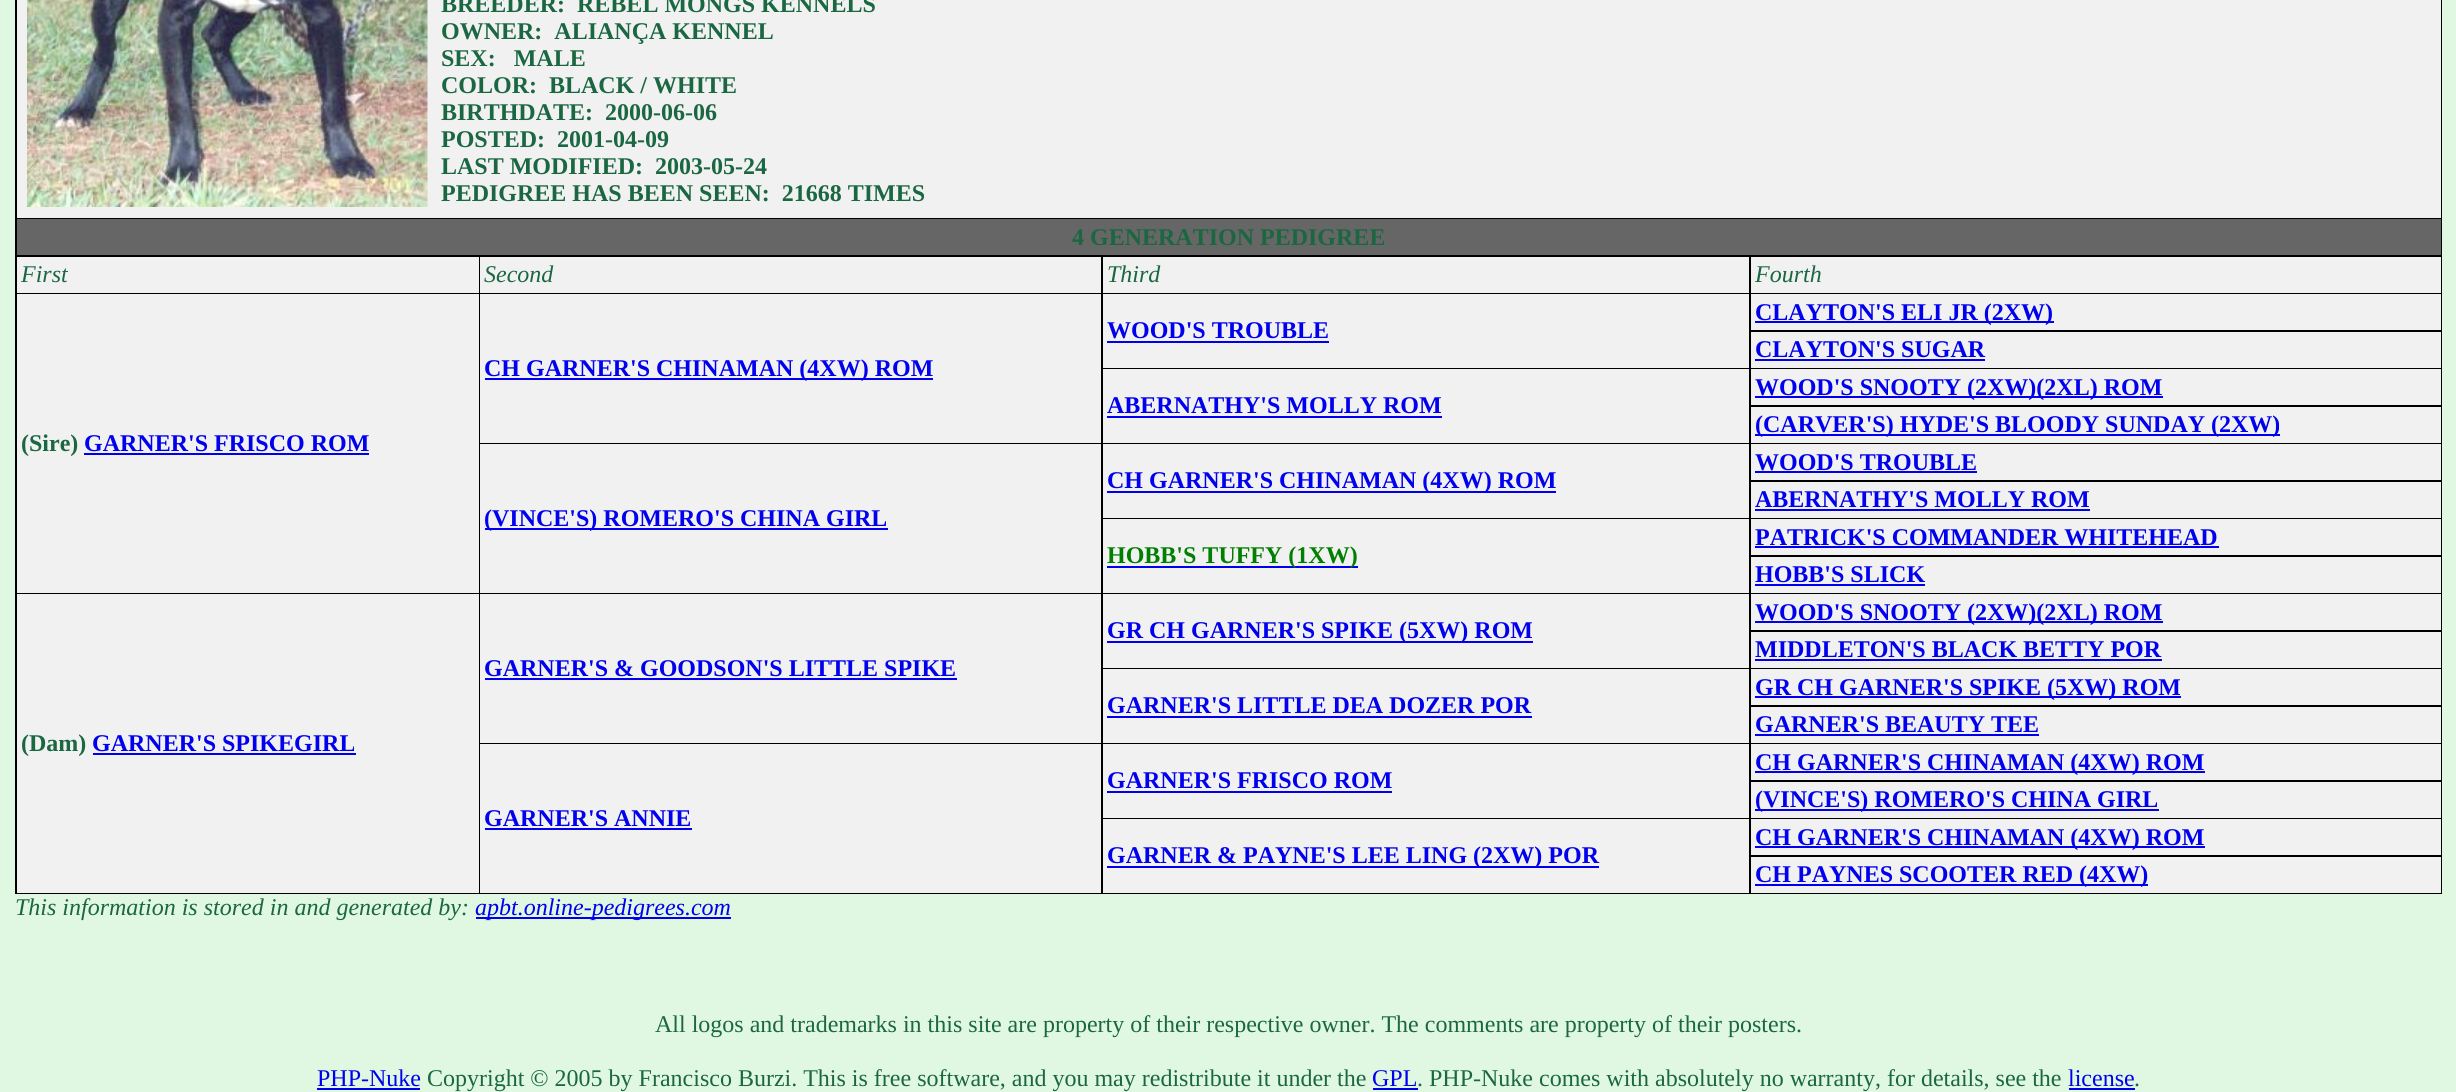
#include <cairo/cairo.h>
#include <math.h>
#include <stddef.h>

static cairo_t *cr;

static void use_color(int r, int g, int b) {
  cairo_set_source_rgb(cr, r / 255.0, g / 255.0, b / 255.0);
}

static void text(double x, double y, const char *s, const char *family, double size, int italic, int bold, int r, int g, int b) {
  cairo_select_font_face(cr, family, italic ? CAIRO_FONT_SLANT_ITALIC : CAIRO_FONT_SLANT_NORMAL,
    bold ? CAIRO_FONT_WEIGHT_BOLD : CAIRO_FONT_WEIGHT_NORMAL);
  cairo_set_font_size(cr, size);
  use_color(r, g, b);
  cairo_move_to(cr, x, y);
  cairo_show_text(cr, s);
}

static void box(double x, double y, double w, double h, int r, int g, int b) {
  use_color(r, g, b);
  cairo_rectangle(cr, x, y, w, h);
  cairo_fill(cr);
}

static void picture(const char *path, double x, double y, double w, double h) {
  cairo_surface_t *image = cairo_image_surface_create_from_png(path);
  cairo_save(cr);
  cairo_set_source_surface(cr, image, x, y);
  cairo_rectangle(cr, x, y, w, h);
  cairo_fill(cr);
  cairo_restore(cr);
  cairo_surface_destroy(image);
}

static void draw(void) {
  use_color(224, 248, 226);
  cairo_paint(cr);
  box(15, 0, 2427, 894, 0, 0, 0);
  box(17, 0, 2424, 218, 241, 241, 241);
  picture("img_01.png", 27, 0, 401, 207);
  box(17, 219, 2424, 36, 102, 102, 102);
  box(17, 257, 462, 36, 241, 241, 241);
  box(480, 257, 621, 36, 241, 241, 241);
  box(1103, 257, 646, 36, 241, 241, 241);
  box(1751, 257, 690, 36, 241, 241, 241);
  box(1751, 294, 690, 36, 241, 241, 241);
  box(1755, 321, 299, 2, 0, 0, 238);
  box(1103, 294, 646, 74, 241, 241, 241);
  box(1107, 341, 222, 2, 0, 0, 238);
  box(480, 294, 621, 149, 241, 241, 241);
  box(485, 378, 448, 2, 0, 0, 238);
  box(17, 294, 462, 299, 241, 241, 241);
  box(84, 453, 285, 2, 0, 0, 238);
  box(1751, 332, 690, 36, 241, 241, 241);
  box(1755, 359, 230, 2, 0, 0, 238);
  box(1751, 369, 690, 36, 241, 241, 241);
  box(1755, 396, 408, 2, 0, 0, 238);
  box(1103, 369, 646, 74, 241, 241, 241);
  box(1107, 416, 335, 2, 0, 0, 238);
  box(1751, 407, 690, 36, 241, 241, 241);
  box(1755, 434, 525, 2, 0, 0, 238);
  box(1751, 444, 690, 36, 241, 241, 241);
  box(1755, 471, 222, 2, 0, 0, 238);
  box(1103, 444, 646, 74, 241, 241, 241);
  box(1107, 491, 449, 2, 0, 0, 238);
  box(480, 444, 621, 149, 241, 241, 241);
  box(485, 528, 403, 2, 0, 0, 238);
  box(1751, 482, 690, 36, 241, 241, 241);
  box(1755, 509, 335, 2, 0, 0, 238);
  box(1751, 519, 690, 36, 241, 241, 241);
  box(1755, 546, 464, 2, 0, 0, 238);
  box(1103, 519, 646, 74, 241, 241, 241);
  box(1107, 566, 251, 2, 0, 0, 238);
  box(1751, 557, 690, 36, 241, 241, 241);
  box(1755, 584, 170, 2, 0, 0, 238);
  box(1751, 594, 690, 36, 241, 241, 241);
  box(1755, 621, 408, 2, 0, 0, 238);
  box(1103, 594, 646, 74, 241, 241, 241);
  box(1107, 641, 426, 2, 0, 0, 238);
  box(480, 594, 621, 149, 241, 241, 241);
  box(485, 678, 472, 2, 0, 0, 238);
  box(17, 594, 462, 299, 241, 241, 241);
  box(93, 753, 263, 2, 0, 0, 238);
  box(1751, 632, 690, 36, 241, 241, 241);
  box(1755, 659, 407, 2, 0, 0, 238);
  box(1751, 669, 690, 36, 241, 241, 241);
  box(1755, 696, 426, 2, 0, 0, 238);
  box(1103, 669, 646, 74, 241, 241, 241);
  box(1107, 716, 425, 2, 0, 0, 238);
  box(1751, 707, 690, 36, 241, 241, 241);
  box(1755, 734, 284, 2, 0, 0, 238);
  box(1751, 744, 690, 36, 241, 241, 241);
  box(1755, 771, 450, 2, 0, 0, 238);
  box(1103, 744, 646, 74, 241, 241, 241);
  box(1107, 791, 285, 2, 0, 0, 238);
  box(480, 744, 621, 149, 241, 241, 241);
  box(485, 828, 207, 2, 0, 0, 238);
  box(1751, 782, 690, 36, 241, 241, 241);
  box(1755, 809, 404, 2, 0, 0, 238);
  box(1751, 819, 690, 36, 241, 241, 241);
  box(1755, 846, 450, 2, 0, 0, 238);
  box(1103, 819, 646, 74, 241, 241, 241);
  box(1107, 866, 492, 2, 0, 0, 238);
  box(1751, 857, 690, 36, 241, 241, 241);
  box(1755, 884, 393, 2, 0, 0, 238);
  box(476, 917, 255, 2, 0, 0, 238);
  box(317, 1088, 103, 2, 0, 0, 238);
  box(1373, 1088, 45, 2, 0, 0, 238);
  box(2069, 1088, 66, 2, 0, 0, 238);
  text(441, 12, "BREEDER:  REBEL MONGS KENNELS", "Liberation Serif", 24, 0, 1, 26, 103, 66);
  text(441, 39, "OWNER:  ALIANÇA KENNEL", "Liberation Serif", 24, 0, 1, 26, 103, 66);
  text(441, 66, "SEX:   MALE", "Liberation Serif", 24, 0, 1, 26, 103, 66);
  text(441, 93, "COLOR:  BLACK / WHITE", "Liberation Serif", 24, 0, 1, 26, 103, 66);
  text(441, 120, "BIRTHDATE:  2000-06-06", "Liberation Serif", 24, 0, 1, 26, 103, 66);
  text(441, 147, "POSTED:  2001-04-09", "Liberation Serif", 24, 0, 1, 26, 103, 66);
  text(441, 174, "LAST MODIFIED:  2003-05-24", "Liberation Serif", 24, 0, 1, 26, 103, 66);
  text(441, 201, "PEDIGREE HAS BEEN SEEN:  21668 TIMES", "Liberation Serif", 24, 0, 1, 26, 103, 66);
  text(1072, 245, "4 GENERATION PEDIGREE", "Liberation Serif", 24, 0, 1, 26, 103, 66);
  text(21, 282, "First", "Liberation Serif", 24, 1, 0, 26, 103, 66);
  text(484, 282, "Second", "Liberation Serif", 24, 1, 0, 26, 103, 66);
  text(1107, 282, "Third", "Liberation Serif", 24, 1, 0, 26, 103, 66);
  text(1755, 282, "Fourth", "Liberation Serif", 24, 1, 0, 26, 103, 66);
  text(1755, 320, "CLAYTON'S ELI JR (2XW)", "Liberation Serif", 24, 0, 1, 0, 0, 238);
  text(1107, 338, "WOOD'S TROUBLE", "Liberation Serif", 24, 0, 1, 0, 0, 238);
  text(484, 376, "CH GARNER'S CHINAMAN (4XW) ROM", "Liberation Serif", 24, 0, 1, 0, 0, 238);
  text(21, 451, "(Sire)", "Liberation Serif", 24, 0, 1, 26, 103, 66);
  text(84, 451, "GARNER'S FRISCO ROM", "Liberation Serif", 24, 0, 1, 0, 0, 238);
  text(1755, 357, "CLAYTON'S SUGAR", "Liberation Serif", 24, 0, 1, 0, 0, 238);
  text(1755, 395, "WOOD'S SNOOTY (2XW)(2XL) ROM", "Liberation Serif", 24, 0, 1, 0, 0, 238);
  text(1107, 413, "ABERNATHY'S MOLLY ROM", "Liberation Serif", 24, 0, 1, 0, 0, 238);
  text(1755, 432, "(CARVER'S) HYDE'S BLOODY SUNDAY (2XW)", "Liberation Serif", 24, 0, 1, 0, 0, 238);
  text(1755, 470, "WOOD'S TROUBLE", "Liberation Serif", 24, 0, 1, 0, 0, 238);
  text(1107, 488, "CH GARNER'S CHINAMAN (4XW) ROM", "Liberation Serif", 24, 0, 1, 0, 0, 238);
  text(484, 526, "(VINCE'S) ROMERO'S CHINA GIRL", "Liberation Serif", 24, 0, 1, 0, 0, 238);
  text(1755, 507, "ABERNATHY'S MOLLY ROM", "Liberation Serif", 24, 0, 1, 0, 0, 238);
  text(1755, 545, "PATRICK'S COMMANDER WHITEHEAD", "Liberation Serif", 24, 0, 1, 0, 0, 238);
  text(1107, 563, "HOBB'S TUFFY (1XW)", "Liberation Serif", 24, 0, 1, 0, 128, 0);
  text(1755, 582, "HOBB'S SLICK", "Liberation Serif", 24, 0, 1, 0, 0, 238);
  text(1755, 620, "WOOD'S SNOOTY (2XW)(2XL) ROM", "Liberation Serif", 24, 0, 1, 0, 0, 238);
  text(1107, 638, "GR CH GARNER'S SPIKE (5XW) ROM", "Liberation Serif", 24, 0, 1, 0, 0, 238);
  text(484, 676, "GARNER'S & GOODSON'S LITTLE SPIKE", "Liberation Serif", 24, 0, 1, 0, 0, 238);
  text(21, 751, "(Dam)", "Liberation Serif", 24, 0, 1, 26, 103, 66);
  text(92, 751, "GARNER'S SPIKEGIRL", "Liberation Serif", 24, 0, 1, 0, 0, 238);
  text(1755, 657, "MIDDLETON'S BLACK BETTY POR", "Liberation Serif", 24, 0, 1, 0, 0, 238);
  text(1755, 695, "GR CH GARNER'S SPIKE (5XW) ROM", "Liberation Serif", 24, 0, 1, 0, 0, 238);
  text(1107, 713, "GARNER'S LITTLE DEA DOZER POR", "Liberation Serif", 24, 0, 1, 0, 0, 238);
  text(1755, 732, "GARNER'S BEAUTY TEE", "Liberation Serif", 24, 0, 1, 0, 0, 238);
  text(1755, 770, "CH GARNER'S CHINAMAN (4XW) ROM", "Liberation Serif", 24, 0, 1, 0, 0, 238);
  text(1107, 788, "GARNER'S FRISCO ROM", "Liberation Serif", 24, 0, 1, 0, 0, 238);
  text(484, 826, "GARNER'S ANNIE", "Liberation Serif", 24, 0, 1, 0, 0, 238);
  text(1755, 807, "(VINCE'S) ROMERO'S CHINA GIRL", "Liberation Serif", 24, 0, 1, 0, 0, 238);
  text(1755, 845, "CH GARNER'S CHINAMAN (4XW) ROM", "Liberation Serif", 24, 0, 1, 0, 0, 238);
  text(1107, 863, "GARNER & PAYNE'S LEE LING (2XW) POR", "Liberation Serif", 24, 0, 1, 0, 0, 238);
  text(1755, 882, "CH PAYNES SCOOTER RED (4XW)", "Liberation Serif", 24, 0, 1, 0, 0, 238);
  text(15, 915, "This information is stored in and generated by:", "Liberation Serif", 24, 1, 0, 26, 103, 66);
  text(475, 915, "apbt.online-pedigrees.com", "Liberation Serif", 24, 1, 0, 0, 0, 238);
  text(655, 1032, "All logos and trademarks in this site are property of their respective owner. The comments are property of their posters.", "Liberation Serif", 24, 0, 0, 26, 103, 66);
  text(317, 1086, "PHP-Nuke", "Liberation Serif", 24, 0, 0, 0, 0, 238);
  text(427, 1086, "Copyright © 2005 by Francisco Burzi. This is free software, and you may redistribute it under the", "Liberation Serif", 24, 0, 0, 26, 103, 66);
  text(1372, 1086, "GPL", "Liberation Serif", 24, 0, 0, 0, 0, 238);
  text(1417, 1086, ". PHP-Nuke comes with absolutely no warranty, for details, see the", "Liberation Serif", 24, 0, 0, 26, 103, 66);
  text(2068, 1086, "license", "Liberation Serif", 24, 0, 0, 0, 0, 238);
  text(2134, 1086, ".", "Liberation Serif", 24, 0, 0, 26, 103, 66);
}

int main(void) {
  cairo_surface_t *surface = cairo_image_surface_create(CAIRO_FORMAT_RGB24, 2456, 1092);
  cr = cairo_create(surface);
  cairo_font_options_t *options = cairo_font_options_create();
  cairo_font_options_set_hint_metrics(options, CAIRO_HINT_METRICS_OFF);
  cairo_font_options_set_hint_style(options, CAIRO_HINT_STYLE_NONE);
  cairo_set_font_options(cr, options);
  cairo_set_miter_limit(cr, 4);
  draw();
  cairo_surface_write_to_png(surface, "out.png");
  cairo_font_options_destroy(options);
  cairo_destroy(cr);
  cairo_surface_destroy(surface);
  return 0;
}
